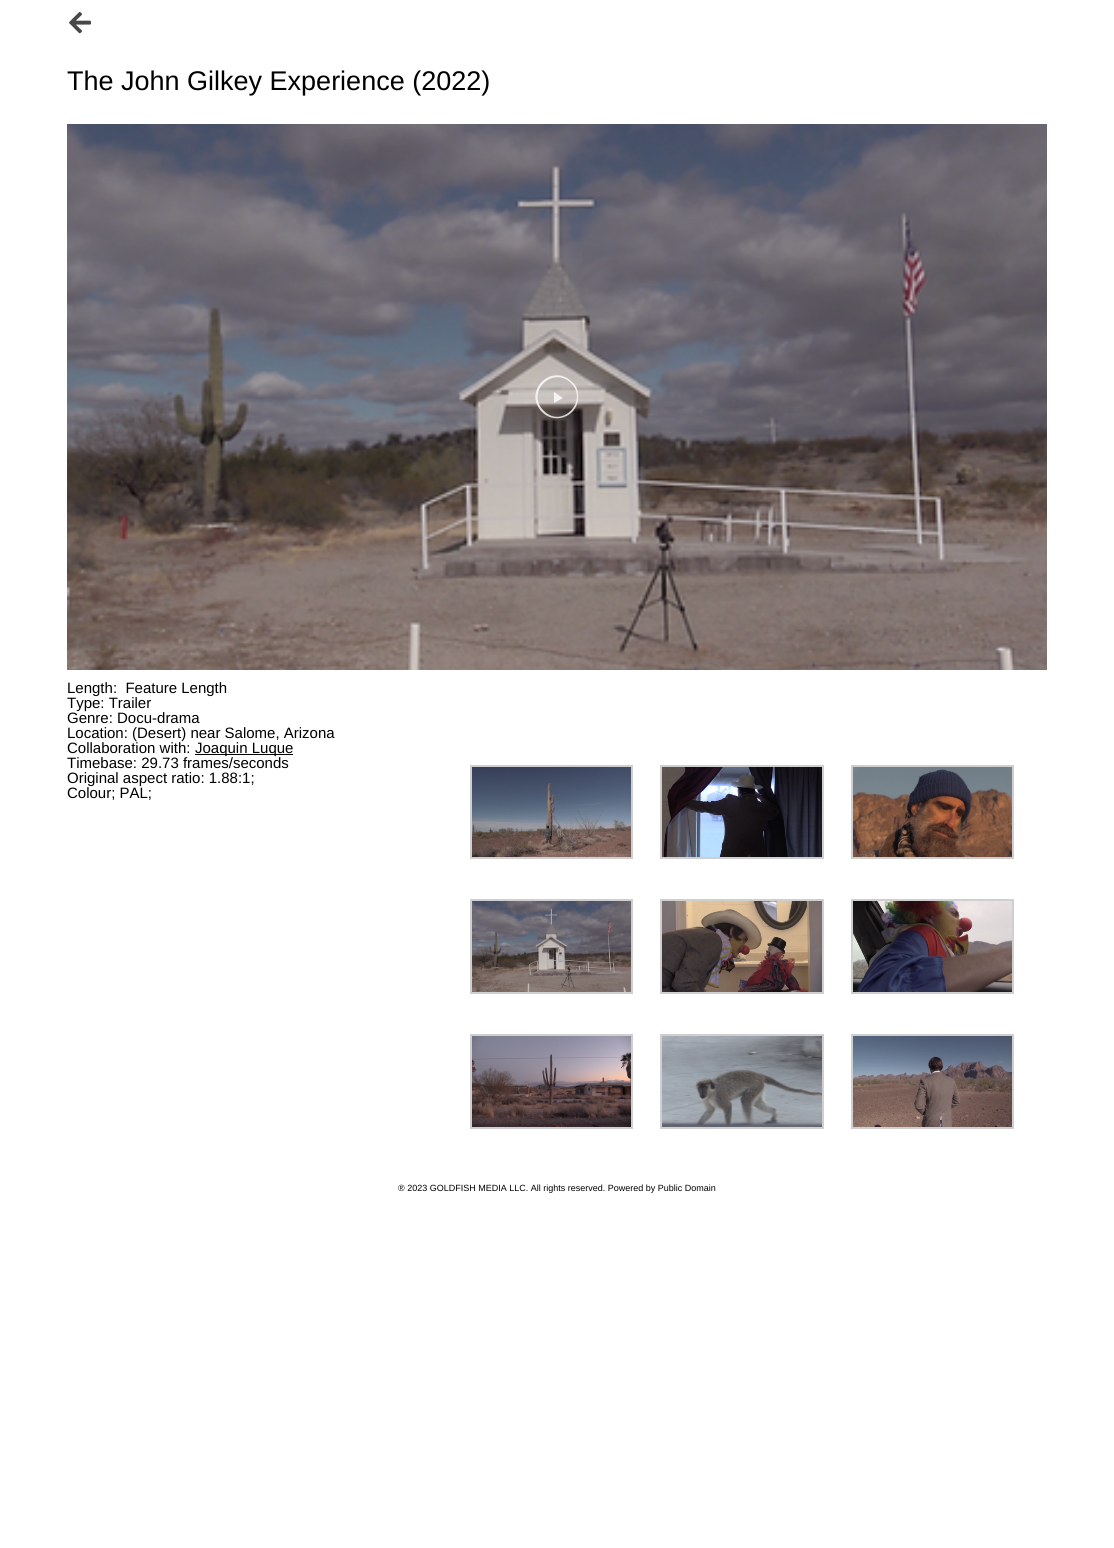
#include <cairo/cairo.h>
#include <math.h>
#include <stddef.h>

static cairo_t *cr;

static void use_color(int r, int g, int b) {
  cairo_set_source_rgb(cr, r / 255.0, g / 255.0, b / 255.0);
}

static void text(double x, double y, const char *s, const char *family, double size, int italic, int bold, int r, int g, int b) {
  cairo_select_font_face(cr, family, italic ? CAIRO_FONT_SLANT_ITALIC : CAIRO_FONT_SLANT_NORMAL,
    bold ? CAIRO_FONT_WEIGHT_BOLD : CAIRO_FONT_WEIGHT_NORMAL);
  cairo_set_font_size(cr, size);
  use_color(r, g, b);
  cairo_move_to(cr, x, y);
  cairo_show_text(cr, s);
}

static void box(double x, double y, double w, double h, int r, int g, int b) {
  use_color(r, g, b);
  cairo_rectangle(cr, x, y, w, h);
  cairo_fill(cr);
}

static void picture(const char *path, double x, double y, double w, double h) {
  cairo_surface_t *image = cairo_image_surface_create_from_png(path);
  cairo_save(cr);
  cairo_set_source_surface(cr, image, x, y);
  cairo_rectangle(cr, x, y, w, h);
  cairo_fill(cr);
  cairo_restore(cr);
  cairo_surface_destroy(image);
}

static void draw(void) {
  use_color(255, 255, 255);
  cairo_paint(cr);
  picture("img_01.png", 69, 12, 22, 22);
  picture("img_02.png", 67, 124, 980, 546);
  cairo_set_source_rgba(cr, 1, 1, 1, 0.8);
  cairo_new_path(cr);
  cairo_move_to(cr, 572, 382);
  cairo_curve_to(cr, 552, 362, 522, 391, 542, 412);
  cairo_curve_to(cr, 556, 426, 580, 415, 578, 395);
  cairo_curve_to(cr, 578, 390, 576, 385, 572, 382);
  cairo_close_path(cr);
  cairo_move_to(cr, 571, 383);
  cairo_curve_to(cr, 589, 401, 562, 429, 544, 411);
  cairo_curve_to(cr, 525, 393, 552, 365, 571, 383);
  cairo_close_path(cr);
  cairo_move_to(cr, 554, 392);
  cairo_line_to(cr, 554, 403);
  cairo_line_to(cr, 563, 398);
  cairo_close_path(cr);
  cairo_fill(cr);
  box(195, 754, 98, 1, 0, 0, 0);
  cairo_rectangle(cr, 471, 766, 161, 92);
  use_color(207, 207, 207);
  cairo_stroke(cr);
  picture("img_03.png", 472, 767, 159, 90);
  cairo_rectangle(cr, 661, 766, 162, 92);
  cairo_stroke(cr);
  picture("img_04.png", 662, 767, 160, 90);
  cairo_rectangle(cr, 852, 766, 161, 92);
  cairo_stroke(cr);
  picture("img_05.png", 853, 767, 159, 90);
  cairo_rectangle(cr, 471, 900, 161, 93);
  cairo_stroke(cr);
  picture("img_06.png", 472, 901, 159, 91);
  cairo_rectangle(cr, 661, 900, 162, 93);
  cairo_stroke(cr);
  picture("img_07.png", 662, 901, 160, 91);
  cairo_rectangle(cr, 852, 900, 161, 93);
  cairo_stroke(cr);
  picture("img_08.png", 853, 901, 159, 91);
  cairo_rectangle(cr, 471, 1035, 161, 93);
  cairo_stroke(cr);
  picture("img_09.png", 472, 1036, 159, 91);
  cairo_rectangle(cr, 661, 1035, 162, 93);
  cairo_stroke(cr);
  picture("img_10.png", 662, 1036, 160, 91);
  cairo_rectangle(cr, 852, 1035, 161, 93);
  cairo_stroke(cr);
  picture("img_11.png", 853, 1036, 159, 91);
  text(67, 90, "The John Gilkey Experience (2022)", "Liberation Sans", 27, 0, 0, 0, 0, 0);
  text(67, 693, "Length:  Feature Length", "Liberation Sans", 15, 0, 0, 0, 0, 0);
  text(67, 708, "Type: Trailer", "Liberation Sans", 15, 0, 0, 0, 0, 0);
  text(67, 723, "Genre: Docu-drama", "Liberation Sans", 15, 0, 0, 0, 0, 0);
  text(67, 738, "Location: (Desert) near Salome, Arizona", "Liberation Sans", 15, 0, 0, 0, 0, 0);
  text(67, 753, "Collaboration with:", "Liberation Sans", 15, 0, 0, 0, 0, 0);
  text(195, 753, "Joaquin Luque", "Liberation Sans", 15, 0, 0, 0, 0, 0);
  text(67, 768, "Timebase: 29.73 frames/seconds", "Liberation Sans", 15, 0, 0, 0, 0, 0);
  text(67, 783, "Original aspect ratio: 1.88:1;", "Liberation Sans", 15, 0, 0, 0, 0, 0);
  text(67, 798, "Colour; PAL;", "Liberation Sans", 15, 0, 0, 0, 0, 0);
  text(398, 1191, "® 2023 GOLDFISH MEDIA LLC. All rights reserved. Powered by Public Domain", "Liberation Sans", 9, 0, 0, 0, 0, 0);
}

int main(void) {
  cairo_surface_t *surface = cairo_image_surface_create(CAIRO_FORMAT_RGB24, 1114, 1548);
  cr = cairo_create(surface);
  cairo_font_options_t *options = cairo_font_options_create();
  cairo_font_options_set_hint_metrics(options, CAIRO_HINT_METRICS_OFF);
  cairo_font_options_set_hint_style(options, CAIRO_HINT_STYLE_NONE);
  cairo_set_font_options(cr, options);
  cairo_set_miter_limit(cr, 4);
  draw();
  cairo_surface_write_to_png(surface, "out.png");
  cairo_font_options_destroy(options);
  cairo_destroy(cr);
  cairo_surface_destroy(surface);
  return 0;
}
